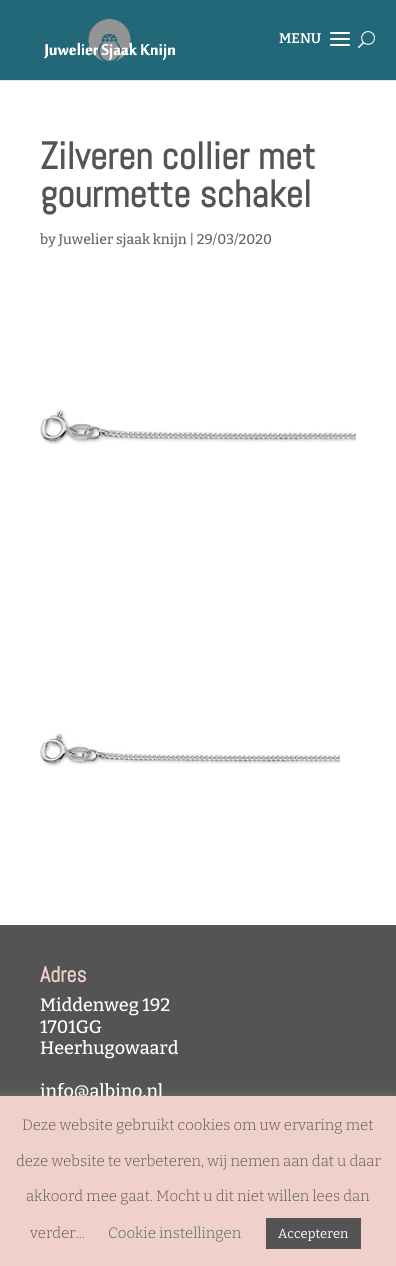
#include <cairo/cairo.h>
#include <math.h>
#include <stddef.h>

static cairo_t *cr;

static void use_color(int r, int g, int b) {
  cairo_set_source_rgb(cr, r / 255.0, g / 255.0, b / 255.0);
}

static void text(double x, double y, const char *s, const char *family, double size, int italic, int bold, int r, int g, int b) {
  cairo_select_font_face(cr, family, italic ? CAIRO_FONT_SLANT_ITALIC : CAIRO_FONT_SLANT_NORMAL,
    bold ? CAIRO_FONT_WEIGHT_BOLD : CAIRO_FONT_WEIGHT_NORMAL);
  cairo_set_font_size(cr, size);
  use_color(r, g, b);
  cairo_move_to(cr, x, y);
  cairo_show_text(cr, s);
}

static void box(double x, double y, double w, double h, int r, int g, int b) {
  use_color(r, g, b);
  cairo_rectangle(cr, x, y, w, h);
  cairo_fill(cr);
}

static void round_rect(double x, double y, double w, double h, double r) {
  cairo_new_sub_path(cr);
  cairo_arc(cr, x + w - r, y + h - r, r, 0, M_PI / 2);
  cairo_arc(cr, x + r, y + h - r, r, M_PI / 2, M_PI);
  cairo_arc(cr, x + r, y + r, r, M_PI, 1.5 * M_PI);
  cairo_arc(cr, x + w - r, y + r, r, 1.5 * M_PI, 2 * M_PI);
  cairo_close_path(cr);
}

static void shadow(double x, double y, double w, double h, double r, double blur, double alpha) {
  cairo_push_group_with_content(cr, CAIRO_CONTENT_ALPHA);
  cairo_set_operator(cr, CAIRO_OPERATOR_SOURCE);
  for (int i = 15; i >= -15 && fmin(w, h) + blur * i / 3 > 0; i -= 2) {
    double e = blur * i / 6;
    cairo_set_source_rgba(cr, 0, 0, 0, alpha * erfc((i - 1) / 8.5) / 2);
    round_rect(x - e, y - e, w + 2 * e, h + 2 * e, fmax(0, fmin(r + e + blur * .6, fmin(w, h) / 2 + e)));
    cairo_fill(cr);
  }
  cairo_pattern_t *soft = cairo_pop_group(cr);
  cairo_mask(cr, soft);
  cairo_pattern_destroy(soft);
}

static void picture(const char *path, double x, double y, double w, double h) {
  cairo_surface_t *image = cairo_image_surface_create_from_png(path);
  cairo_save(cr);
  cairo_set_source_surface(cr, image, x, y);
  cairo_rectangle(cr, x, y, w, h);
  cairo_fill(cr);
  cairo_restore(cr);
  cairo_surface_destroy(image);
}

static void draw(void) {
  use_color(255, 255, 255);
  cairo_paint(cr);
  box(0, 80, 396, 1, 230, 230, 230);
  box(0, 0, 396, 80, 35, 104, 120);
  picture("img_01.png", 44, 19, 131, 42);
  picture("img_02.png", 330, 32, 20, 14);
  picture("img_03.png", 358, 31, 17, 18);
  picture("img_04.png", 40, 409, 316, 36);
  picture("img_05.png", 40, 733, 300, 34);
  box(0, 925, 396, 171, 84, 84, 84);
  use_color(172, 171, 171);
  shadow(0, 1095, 396, 170, 0, 5, 0.3);
  text(279, 43, "MENU", "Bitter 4 Thin", 14, 0, 0, 255, 255, 255);
  text(40, 169, "Zilveren collier met", "Abel", 38, 0, 1, 84, 84, 84);
  text(40, 207, "gourmette schakel", "Abel", 38, 0, 1, 84, 84, 84);
  text(40, 244, "by Juwelier sjaak knijn | 29/03/2020", "Bitter Thin", 14, 0, 0, 102, 102, 102);
  text(40, 982, "Adres", "Abel", 22, 0, 1, 239, 208, 202);
  text(40, 1011, "Middenweg 192", "Bitter Thin", 18, 0, 0, 255, 255, 255);
  text(40, 1033, "1701GG", "Bitter Thin", 18, 0, 0, 255, 255, 255);
  text(40, 1054, "Heerhugowaard", "Bitter Thin", 18, 0, 0, 255, 255, 255);
  text(40, 1097, "info@albino.nl", "Bitter Thin", 18, 0, 0, 255, 255, 255);
  box(0, 1096, 396, 170, 239, 208, 202);
  text(22, 1130, "Deze website gebruikt cookies om uw ervaring met", "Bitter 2 Thin", 15, 0, 0, 84, 84, 84);
  text(16, 1166, "deze website te verbeteren, wij nemen aan dat u daar", "Bitter 2 Thin", 15, 0, 0, 84, 84, 84);
  text(26, 1201, "akkoord mee gaat. Mocht u dit niet willen lees dan", "Bitter 2 Thin", 15, 0, 0, 84, 84, 84);
  text(30, 1238, "verder...", "Bitter 2 Thin", 15, 0, 0, 84, 84, 84);
  text(108, 1238, "Cookie instellingen", "Bitter 2 Thin", 15, 0, 0, 62, 98, 99);
  box(266, 1218, 95, 31, 84, 84, 84);
  text(278, 1238, "Accepteren", "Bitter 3 Thin", 13, 0, 0, 255, 255, 255);
}

int main(void) {
  cairo_surface_t *surface = cairo_image_surface_create(CAIRO_FORMAT_RGB24, 396, 1266);
  cr = cairo_create(surface);
  cairo_font_options_t *options = cairo_font_options_create();
  cairo_font_options_set_hint_metrics(options, CAIRO_HINT_METRICS_OFF);
  cairo_font_options_set_hint_style(options, CAIRO_HINT_STYLE_NONE);
  cairo_set_font_options(cr, options);
  cairo_set_miter_limit(cr, 4);
  draw();
  cairo_surface_write_to_png(surface, "out.png");
  cairo_font_options_destroy(options);
  cairo_destroy(cr);
  cairo_surface_destroy(surface);
  return 0;
}
